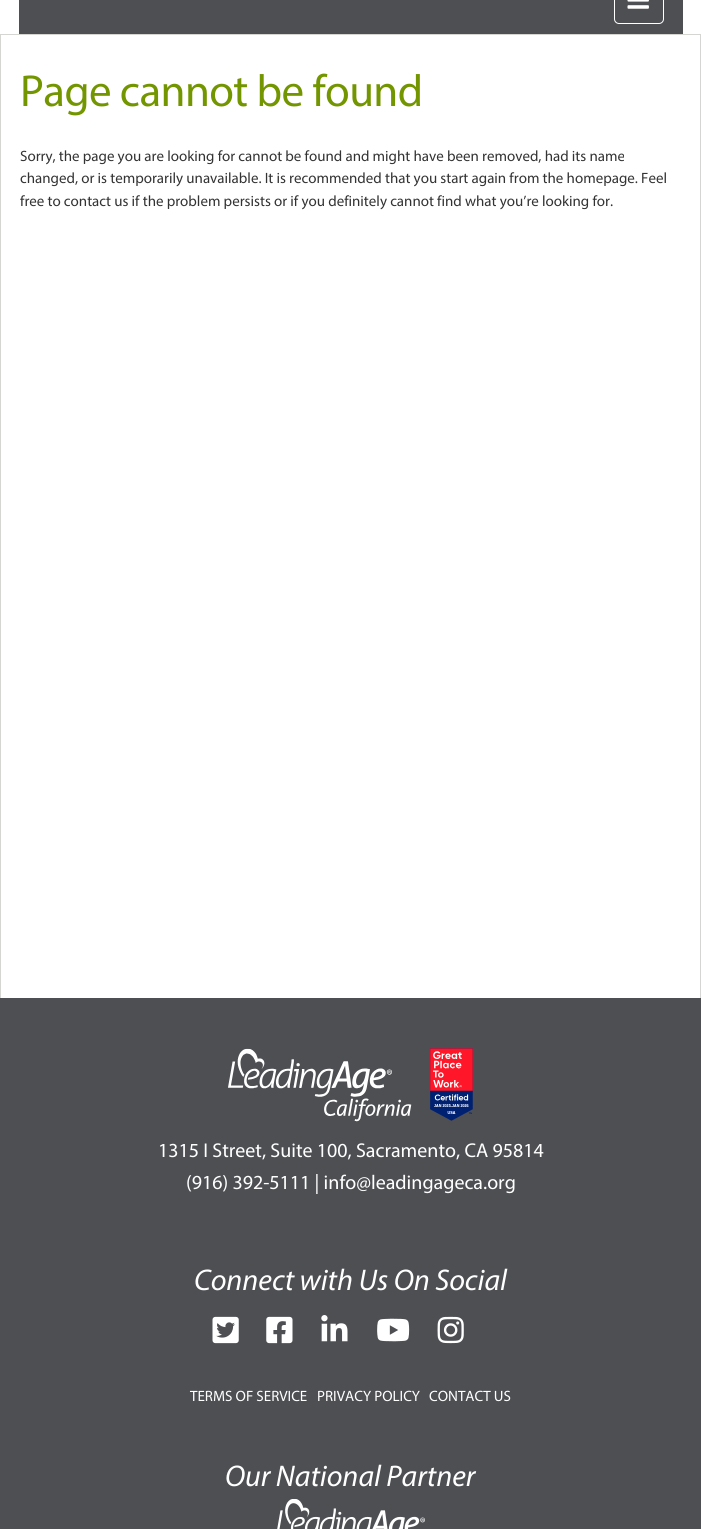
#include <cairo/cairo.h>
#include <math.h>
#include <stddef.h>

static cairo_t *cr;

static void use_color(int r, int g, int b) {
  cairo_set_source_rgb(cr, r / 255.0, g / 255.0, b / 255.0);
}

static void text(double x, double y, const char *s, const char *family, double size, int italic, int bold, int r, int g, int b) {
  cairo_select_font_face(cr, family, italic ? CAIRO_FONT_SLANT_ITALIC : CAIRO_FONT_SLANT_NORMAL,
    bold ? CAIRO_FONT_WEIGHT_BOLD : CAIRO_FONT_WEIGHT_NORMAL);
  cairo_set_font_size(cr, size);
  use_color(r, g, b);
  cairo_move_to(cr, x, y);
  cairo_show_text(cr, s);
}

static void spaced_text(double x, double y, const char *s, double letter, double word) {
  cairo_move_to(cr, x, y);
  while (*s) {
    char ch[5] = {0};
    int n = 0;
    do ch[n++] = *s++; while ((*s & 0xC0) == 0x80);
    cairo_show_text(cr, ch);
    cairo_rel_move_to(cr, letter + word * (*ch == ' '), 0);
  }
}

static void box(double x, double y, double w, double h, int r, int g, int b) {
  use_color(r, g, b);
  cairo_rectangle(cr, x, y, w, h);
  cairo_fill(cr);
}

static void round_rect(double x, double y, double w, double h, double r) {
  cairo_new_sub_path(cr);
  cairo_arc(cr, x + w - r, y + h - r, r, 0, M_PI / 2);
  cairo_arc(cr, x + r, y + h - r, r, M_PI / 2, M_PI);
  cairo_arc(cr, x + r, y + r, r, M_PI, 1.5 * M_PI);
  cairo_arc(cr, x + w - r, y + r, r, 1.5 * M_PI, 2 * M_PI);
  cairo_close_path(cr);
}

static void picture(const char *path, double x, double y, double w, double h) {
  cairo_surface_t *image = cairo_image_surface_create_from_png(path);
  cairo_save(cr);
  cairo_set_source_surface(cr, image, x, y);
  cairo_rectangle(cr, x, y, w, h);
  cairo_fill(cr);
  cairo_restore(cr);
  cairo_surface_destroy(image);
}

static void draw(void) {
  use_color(255, 255, 255);
  cairo_paint(cr);
  box(0, 34, 701, 1, 213, 214, 210);
  box(19, 0, 664, 34, 77, 79, 83);
  round_rect(614.5, -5.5, 49, 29, 4.5);
  use_color(255, 255, 255);
  cairo_set_line_width(cr, 1);
  cairo_stroke(cr);
  picture("img_01.png", 627, 0, 22, 9);
  box(700, 35, 1, 963, 213, 214, 210);
  box(0, 35, 1, 963, 213, 214, 210);
  box(0, 998, 701, 531, 77, 79, 83);
  picture("img_02.png", 228, 1048, 245, 74);
  picture("img_03.png", 212, 1316, 27, 28);
  picture("img_04.png", 266, 1316, 27, 28);
  picture("img_05.png", 321, 1315, 27, 27);
  picture("img_06.png", 377, 1318, 33, 24);
  picture("img_07.png", 437, 1316, 27, 28);
  picture("img_08.png", 277, 1499, 148, 30);
  cairo_select_font_face(cr, "Myriad", CAIRO_FONT_SLANT_NORMAL, CAIRO_FONT_WEIGHT_NORMAL);
  cairo_set_font_size(cr, 45);
  use_color(115, 150, 0);
  spaced_text(20, 106, "Page cannot be found", -0.6, 0);
  text(20, 161, "Sorry, the page you are looking for cannot be found and might have been removed, had its name", "Myriad", 15, 0, 0, 51, 51, 51);
  text(20, 183, "changed, or is temporarily unavailable. It is recommended that you start again from the homepage. Feel", "Myriad", 15, 0, 0, 51, 51, 51);
  text(20, 206, "free to contact us if the problem persists or if you definitely cannot find what you’re looking for.", "Myriad", 15, 0, 0, 51, 51, 51);
  text(158, 1157, "1315 I Street, Suite 100, Sacramento, CA 95814", "Myriad", 20, 0, 0, 255, 255, 255);
  text(186, 1189, "(916) 392-5111 | info@leadingageca.org", "Myriad", 20, 0, 0, 255, 255, 255);
  text(194, 1290, "Connect with Us On Social", "Myriad", 30, 1, 0, 255, 255, 255);
  text(190, 1401, "TERMS OF SERVICE", "Myriad", 15, 0, 0, 255, 255, 255);
  text(317, 1401, "PRIVACY POLICY", "Myriad", 15, 0, 0, 255, 255, 255);
  text(429, 1401, "CONTACT US", "Myriad", 15, 0, 0, 255, 255, 255);
  text(225, 1486, "Our National Partner", "Myriad", 30, 1, 0, 255, 255, 255);
}

int main(void) {
  cairo_surface_t *surface = cairo_image_surface_create(CAIRO_FORMAT_RGB24, 701, 1529);
  cr = cairo_create(surface);
  cairo_font_options_t *options = cairo_font_options_create();
  cairo_font_options_set_hint_metrics(options, CAIRO_HINT_METRICS_OFF);
  cairo_font_options_set_hint_style(options, CAIRO_HINT_STYLE_NONE);
  cairo_set_font_options(cr, options);
  cairo_set_miter_limit(cr, 4);
  draw();
  cairo_surface_write_to_png(surface, "out.png");
  cairo_font_options_destroy(options);
  cairo_destroy(cr);
  cairo_surface_destroy(surface);
  return 0;
}
